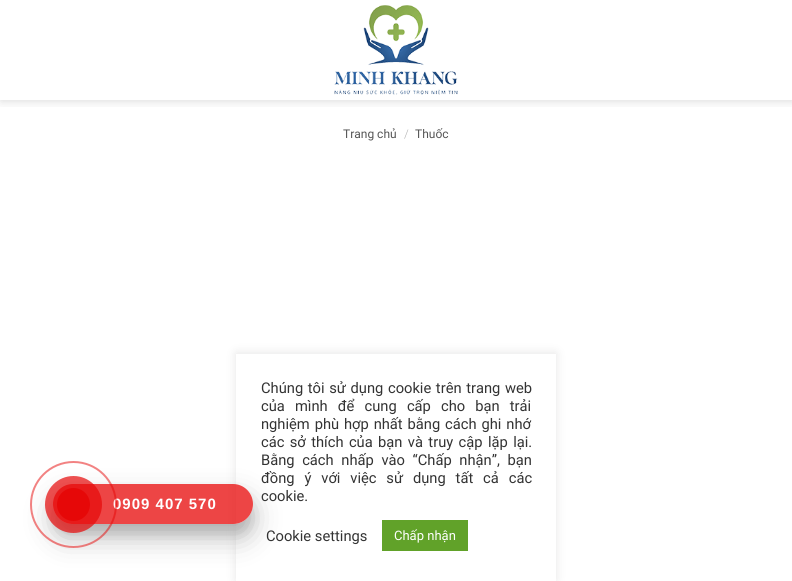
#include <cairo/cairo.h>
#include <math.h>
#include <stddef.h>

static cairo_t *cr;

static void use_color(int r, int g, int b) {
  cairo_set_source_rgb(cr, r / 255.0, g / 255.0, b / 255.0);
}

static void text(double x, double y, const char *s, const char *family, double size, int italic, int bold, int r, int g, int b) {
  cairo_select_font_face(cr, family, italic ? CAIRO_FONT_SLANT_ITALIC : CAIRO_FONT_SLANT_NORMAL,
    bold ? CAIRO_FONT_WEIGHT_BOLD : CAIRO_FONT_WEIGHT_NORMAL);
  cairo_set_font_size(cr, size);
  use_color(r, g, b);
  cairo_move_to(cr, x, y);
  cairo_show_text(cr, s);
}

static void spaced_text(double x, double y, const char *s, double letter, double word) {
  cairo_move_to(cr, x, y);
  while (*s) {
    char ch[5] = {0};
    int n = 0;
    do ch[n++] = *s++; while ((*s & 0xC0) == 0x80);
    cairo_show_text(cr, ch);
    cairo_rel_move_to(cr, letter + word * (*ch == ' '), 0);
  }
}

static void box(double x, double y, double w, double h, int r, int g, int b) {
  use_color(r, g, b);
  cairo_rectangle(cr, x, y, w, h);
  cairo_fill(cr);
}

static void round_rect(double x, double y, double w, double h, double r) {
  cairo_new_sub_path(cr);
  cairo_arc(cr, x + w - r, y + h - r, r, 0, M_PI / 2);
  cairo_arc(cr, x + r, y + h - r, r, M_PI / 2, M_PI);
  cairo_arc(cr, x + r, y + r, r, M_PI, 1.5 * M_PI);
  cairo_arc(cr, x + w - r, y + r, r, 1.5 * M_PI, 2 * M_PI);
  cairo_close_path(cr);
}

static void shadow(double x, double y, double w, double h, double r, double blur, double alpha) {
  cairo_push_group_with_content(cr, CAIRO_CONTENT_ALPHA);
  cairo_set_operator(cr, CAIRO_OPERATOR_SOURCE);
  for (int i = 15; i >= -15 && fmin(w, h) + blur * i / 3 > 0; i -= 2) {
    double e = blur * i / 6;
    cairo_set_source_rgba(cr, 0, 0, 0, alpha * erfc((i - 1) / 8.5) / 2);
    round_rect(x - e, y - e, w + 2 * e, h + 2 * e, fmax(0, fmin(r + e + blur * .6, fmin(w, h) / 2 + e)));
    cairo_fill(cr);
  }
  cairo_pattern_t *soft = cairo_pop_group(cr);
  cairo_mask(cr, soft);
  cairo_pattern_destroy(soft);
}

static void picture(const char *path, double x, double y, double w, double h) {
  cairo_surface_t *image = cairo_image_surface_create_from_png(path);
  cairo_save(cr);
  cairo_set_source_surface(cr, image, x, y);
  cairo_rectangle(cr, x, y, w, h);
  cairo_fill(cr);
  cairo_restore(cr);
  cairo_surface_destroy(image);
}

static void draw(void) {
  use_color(255, 255, 255);
  cairo_paint(cr);
  cairo_save(cr);
  cairo_rectangle(cr, 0, 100, 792, 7);
  cairo_clip(cr);
  use_color(0, 0, 0);
  shadow(1, 1, 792, 100, 0, 5, 0.15);
  cairo_restore(cr);
  picture("img_01.png", 334, 5, 124, 90);
  cairo_save(cr);
  cairo_set_fill_rule(cr, CAIRO_FILL_RULE_EVEN_ODD);
  cairo_new_path(cr);
  cairo_move_to(cr, 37, 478);
  cairo_line_to(cr, 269, 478);
  cairo_line_to(cr, 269, 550);
  cairo_line_to(cr, 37, 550);
  cairo_close_path(cr);
  cairo_move_to(cr, 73, 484);
  cairo_line_to(cr, 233, 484);
  cairo_curve_to(cr, 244, 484, 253, 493, 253, 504);
  cairo_curve_to(cr, 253, 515, 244, 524, 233, 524);
  cairo_line_to(cr, 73, 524);
  cairo_curve_to(cr, 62, 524, 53, 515, 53, 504);
  cairo_curve_to(cr, 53, 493, 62, 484, 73, 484);
  cairo_close_path(cr);
  cairo_clip(cr);
  use_color(0, 0, 0);
  shadow(53, 494, 200, 40, 20, 5, 0.1);
  cairo_restore(cr);
  cairo_save(cr);
  cairo_set_fill_rule(cr, CAIRO_FILL_RULE_EVEN_ODD);
  cairo_new_path(cr);
  cairo_move_to(cr, 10, 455);
  cairo_line_to(cr, 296, 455);
  cairo_line_to(cr, 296, 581);
  cairo_line_to(cr, 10, 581);
  cairo_close_path(cr);
  cairo_move_to(cr, 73, 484);
  cairo_line_to(cr, 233, 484);
  cairo_curve_to(cr, 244, 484, 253, 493, 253, 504);
  cairo_curve_to(cr, 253, 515, 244, 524, 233, 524);
  cairo_line_to(cr, 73, 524);
  cairo_curve_to(cr, 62, 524, 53, 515, 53, 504);
  cairo_curve_to(cr, 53, 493, 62, 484, 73, 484);
  cairo_close_path(cr);
  cairo_clip(cr);
  use_color(0, 0, 0);
  shadow(53, 498, 200, 40, 20, 14, 0.25);
  cairo_restore(cr);
  cairo_save(cr);
  cairo_set_fill_rule(cr, CAIRO_FILL_RULE_EVEN_ODD);
  cairo_new_path(cr);
  cairo_move_to(cr, 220, 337);
  cairo_line_to(cr, 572, 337);
  cairo_line_to(cr, 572, 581);
  cairo_line_to(cr, 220, 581);
  cairo_close_path(cr);
  cairo_move_to(cr, 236, 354);
  cairo_line_to(cr, 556, 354);
  cairo_line_to(cr, 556, 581);
  cairo_line_to(cr, 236, 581);
  cairo_close_path(cr);
  cairo_clip(cr);
  use_color(172, 171, 171);
  shadow(236, 353, 320, 227, 0, 5, 0.3);
  cairo_restore(cr);
  cairo_set_source_rgba(cr, 0.902, 0.031, 0.031, 0.75);
  round_rect(53, 484, 200, 40, 20);
  cairo_fill(cr);
  box(382, 520, 86, 31, 97, 162, 41);
  text(343, 138, "Trang chủ", "Roboto", 12, 0, 0, 85, 85, 85);
  text(404, 138, "/", "Roboto Light", 12, 0, 0, 178, 178, 178);
  text(415, 138, "Thuốc", "Roboto", 12, 0, 0, 85, 85, 85);
  cairo_select_font_face(cr, "Liberation Sans", CAIRO_FONT_SLANT_NORMAL, CAIRO_FONT_WEIGHT_BOLD);
  cairo_set_font_size(cr, 15);
  use_color(255, 255, 255);
  spaced_text(113, 509, "0909 407 570", 1, 0);
  cairo_new_path(cr);
  cairo_arc(cr, 73.5, 504.5, 42.5, 0, 2 * M_PI);
  cairo_set_source_rgba(cr, 0.902, 0.031, 0.031, 0.5);
  cairo_stroke(cr);
  cairo_set_source_rgba(cr, 0.902, 0.031, 0.031, 0.7);
  cairo_arc(cr, 73.5, 504.5, 28.5, 0, 2 * M_PI);
  cairo_fill(cr);
  use_color(230, 8, 8);
  cairo_arc(cr, 73.5, 504.5, 16.5, 0, 2 * M_PI);
  cairo_fill(cr);
  cairo_select_font_face(cr, "Roboto", CAIRO_FONT_SLANT_NORMAL, CAIRO_FONT_WEIGHT_NORMAL);
  cairo_set_font_size(cr, 14.7);
  use_color(51, 51, 51);
  spaced_text(261, 393, "Chúng tôi sử dụng cookie trên trang web", 0, 1);
  spaced_text(261, 411, "của mình để cung cấp cho bạn trải", 0, 6.5);
  spaced_text(261, 429, "nghiệm phù hợp nhất bằng cách ghi nhớ", 0, 1.25);
  spaced_text(261, 447, "các sở thích của bạn và truy cập lặp lại.", 0, 1.75);
  spaced_text(261, 465, "Bằng cách nhấp vào “Chấp nhận”, bạn", 0, 4);
  spaced_text(261, 483, "đồng ý với việc sử dụng tất cả các", 0, 6.25);
  text(261, 501, "cookie.", "Roboto", 14.7, 0, 0, 51, 51, 51);
  text(266, 541, "Cookie settings", "Roboto", 14.7, 0, 0, 51, 51, 51);
  text(394, 540, "Chấp nhận", "Roboto", 13, 0, 0, 255, 255, 255);
}

int main(void) {
  cairo_surface_t *surface = cairo_image_surface_create(CAIRO_FORMAT_RGB24, 792, 581);
  cr = cairo_create(surface);
  cairo_font_options_t *options = cairo_font_options_create();
  cairo_font_options_set_hint_metrics(options, CAIRO_HINT_METRICS_OFF);
  cairo_font_options_set_hint_style(options, CAIRO_HINT_STYLE_NONE);
  cairo_set_font_options(cr, options);
  cairo_set_miter_limit(cr, 4);
  draw();
  cairo_surface_write_to_png(surface, "out.png");
  cairo_font_options_destroy(options);
  cairo_destroy(cr);
  cairo_surface_destroy(surface);
  return 0;
}
